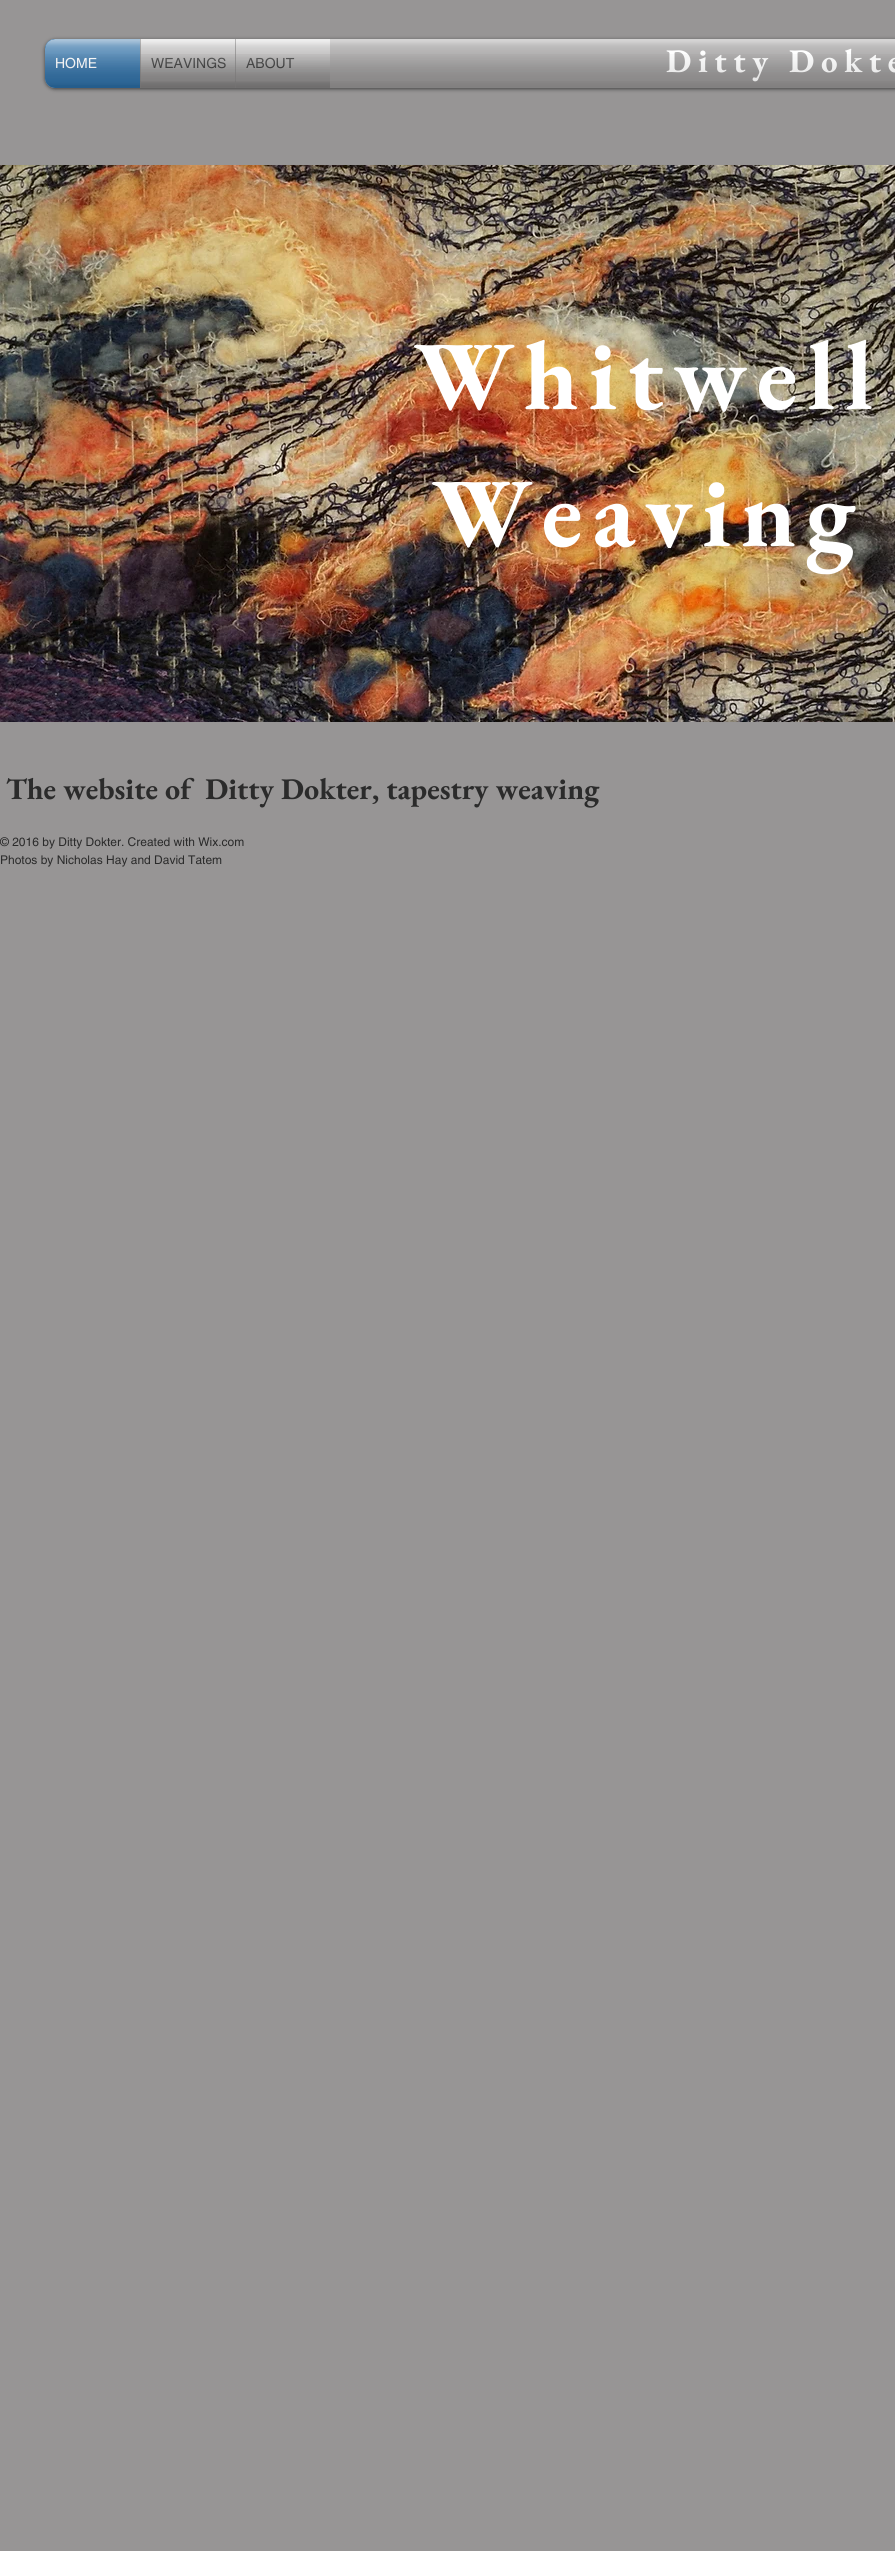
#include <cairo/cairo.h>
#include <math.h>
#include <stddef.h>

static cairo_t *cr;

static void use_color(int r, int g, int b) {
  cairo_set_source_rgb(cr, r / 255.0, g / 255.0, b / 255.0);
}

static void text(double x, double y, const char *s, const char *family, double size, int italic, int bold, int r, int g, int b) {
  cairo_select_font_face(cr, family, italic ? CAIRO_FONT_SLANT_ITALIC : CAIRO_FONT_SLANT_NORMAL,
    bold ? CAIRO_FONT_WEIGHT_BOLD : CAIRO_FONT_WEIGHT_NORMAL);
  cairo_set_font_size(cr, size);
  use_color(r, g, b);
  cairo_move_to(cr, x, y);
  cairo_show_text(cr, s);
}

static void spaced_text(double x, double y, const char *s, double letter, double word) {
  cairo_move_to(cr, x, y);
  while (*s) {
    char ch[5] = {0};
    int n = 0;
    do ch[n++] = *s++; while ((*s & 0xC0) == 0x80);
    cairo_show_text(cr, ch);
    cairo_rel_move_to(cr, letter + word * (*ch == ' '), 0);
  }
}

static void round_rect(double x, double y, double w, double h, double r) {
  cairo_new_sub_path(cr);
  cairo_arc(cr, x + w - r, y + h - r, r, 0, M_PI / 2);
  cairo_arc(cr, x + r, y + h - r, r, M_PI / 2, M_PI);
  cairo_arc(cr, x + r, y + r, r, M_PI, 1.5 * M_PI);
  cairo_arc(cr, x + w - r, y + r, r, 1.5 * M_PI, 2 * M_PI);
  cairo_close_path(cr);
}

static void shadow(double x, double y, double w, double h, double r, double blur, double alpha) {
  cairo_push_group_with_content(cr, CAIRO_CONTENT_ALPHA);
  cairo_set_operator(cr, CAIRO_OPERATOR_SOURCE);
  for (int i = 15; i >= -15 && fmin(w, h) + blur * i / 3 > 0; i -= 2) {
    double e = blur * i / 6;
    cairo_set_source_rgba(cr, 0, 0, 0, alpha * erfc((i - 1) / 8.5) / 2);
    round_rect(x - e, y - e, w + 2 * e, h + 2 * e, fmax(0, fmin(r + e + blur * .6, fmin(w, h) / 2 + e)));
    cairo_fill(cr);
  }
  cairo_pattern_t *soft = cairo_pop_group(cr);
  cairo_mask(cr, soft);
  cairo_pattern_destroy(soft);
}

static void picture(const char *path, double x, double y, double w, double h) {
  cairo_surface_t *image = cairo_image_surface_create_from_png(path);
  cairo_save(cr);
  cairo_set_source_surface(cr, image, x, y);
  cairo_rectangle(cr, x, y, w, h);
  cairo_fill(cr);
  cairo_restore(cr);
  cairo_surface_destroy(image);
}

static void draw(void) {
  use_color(151, 149, 149);
  cairo_paint(cr);
  cairo_save(cr);
  cairo_set_fill_rule(cr, CAIRO_FILL_RULE_EVEN_ODD);
  cairo_new_path(cr);
  cairo_move_to(cr, 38, 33);
  cairo_line_to(cr, 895, 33);
  cairo_line_to(cr, 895, 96);
  cairo_line_to(cr, 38, 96);
  cairo_close_path(cr);
  cairo_move_to(cr, 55, 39);
  cairo_line_to(cr, 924, 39);
  cairo_curve_to(cr, 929.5, 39, 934, 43.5, 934, 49);
  cairo_line_to(cr, 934, 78);
  cairo_curve_to(cr, 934, 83.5, 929.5, 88, 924, 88);
  cairo_line_to(cr, 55, 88);
  cairo_curve_to(cr, 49.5, 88, 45, 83.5, 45, 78);
  cairo_line_to(cr, 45, 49);
  cairo_curve_to(cr, 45, 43.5, 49.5, 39, 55, 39);
  cairo_close_path(cr);
  cairo_clip(cr);
  use_color(0, 0, 0);
  shadow(45, 40, 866, 49, 10, 2, 0.6);
  cairo_restore(cr);
  picture("img_09.png", 0, 165, 895, 557);
  cairo_select_font_face(cr, "EB Garamond", CAIRO_FONT_SLANT_NORMAL, CAIRO_FONT_WEIGHT_BOLD);
  cairo_set_font_size(cr, 33);
  use_color(255, 255, 255);
  spaced_text(666, 72, "Ditty Dokte", 6.6, 0);
  picture("img_01.png", 45, 39, 850, 42);
  picture("img_02.png", 45, 54, 850, 34);
  text(246, 68, "ABOUT", "helvetica", 14, 0, 0, 43, 43, 43);
  picture("img_07.png", 236, 39, 94, 43);
  picture("img_08.png", 236, 54, 94, 34);
  cairo_set_source_rgba(cr, 0.169, 0.169, 0.169, 0.17);
  cairo_rectangle(cr, 235, 39, 1, 49);
  cairo_fill(cr);
  text(151, 68, "WEAVINGS", "helvetica", 14, 0, 0, 43, 43, 43);
  picture("img_05.png", 141, 39, 94, 43);
  picture("img_06.png", 141, 54, 94, 34);
  cairo_set_source_rgba(cr, 0.169, 0.169, 0.169, 0.17);
  cairo_rectangle(cr, 140, 39, 1, 49);
  cairo_fill(cr);
  use_color(43, 108, 163);
  cairo_new_path(cr);
  cairo_move_to(cr, 55, 39);
  cairo_line_to(cr, 140, 39);
  cairo_line_to(cr, 140, 88);
  cairo_line_to(cr, 55, 88);
  cairo_curve_to(cr, 49.5, 88, 45, 83.5, 45, 78);
  cairo_line_to(cr, 45, 49);
  cairo_curve_to(cr, 45, 43.5, 49.5, 39, 55, 39);
  cairo_close_path(cr);
  cairo_fill(cr);
  text(55, 68, "HOME", "helvetica", 14, 0, 0, 255, 255, 255);
  picture("img_03.png", 45, 39, 95, 46);
  picture("img_04.png", 45, 54, 95, 34);
  cairo_select_font_face(cr, "EB Garamond", CAIRO_FONT_SLANT_NORMAL, CAIRO_FONT_WEIGHT_BOLD);
  cairo_set_font_size(cr, 98);
  spaced_text(414, 409, "Whitwell", 9.75, 0);
  spaced_text(432, 546, "Weaving", 9.75, 0);
  text(6, 799, "The website of  Ditty Dokter, tapestry weaving", "EB Garamond", 30, 0, 1, 43, 43, 43);
  text(0, 846, "© 2016 by Ditty Dokter. Created with Wix.com", "helvetica", 12, 0, 0, 43, 43, 43);
  text(0, 864, "Photos by Nicholas Hay and David Tatem", "helvetica", 12, 0, 0, 43, 43, 43);
}

int main(void) {
  cairo_surface_t *surface = cairo_image_surface_create(CAIRO_FORMAT_RGB24, 895, 2551);
  cr = cairo_create(surface);
  cairo_font_options_t *options = cairo_font_options_create();
  cairo_font_options_set_hint_metrics(options, CAIRO_HINT_METRICS_OFF);
  cairo_font_options_set_hint_style(options, CAIRO_HINT_STYLE_NONE);
  cairo_set_font_options(cr, options);
  cairo_set_miter_limit(cr, 4);
  draw();
  cairo_surface_write_to_png(surface, "out.png");
  cairo_font_options_destroy(options);
  cairo_destroy(cr);
  cairo_surface_destroy(surface);
  return 0;
}
